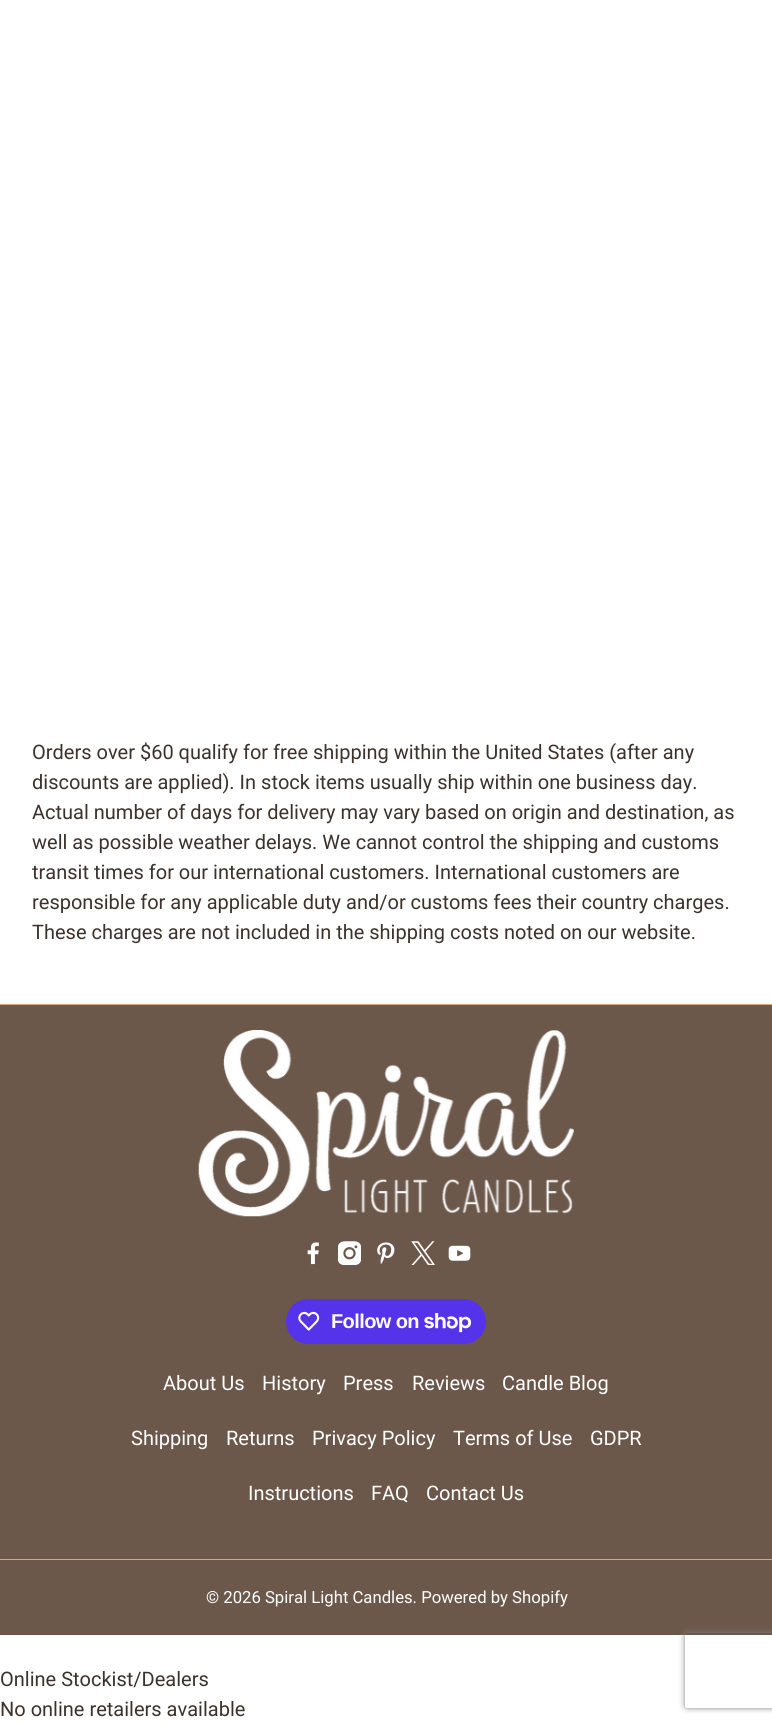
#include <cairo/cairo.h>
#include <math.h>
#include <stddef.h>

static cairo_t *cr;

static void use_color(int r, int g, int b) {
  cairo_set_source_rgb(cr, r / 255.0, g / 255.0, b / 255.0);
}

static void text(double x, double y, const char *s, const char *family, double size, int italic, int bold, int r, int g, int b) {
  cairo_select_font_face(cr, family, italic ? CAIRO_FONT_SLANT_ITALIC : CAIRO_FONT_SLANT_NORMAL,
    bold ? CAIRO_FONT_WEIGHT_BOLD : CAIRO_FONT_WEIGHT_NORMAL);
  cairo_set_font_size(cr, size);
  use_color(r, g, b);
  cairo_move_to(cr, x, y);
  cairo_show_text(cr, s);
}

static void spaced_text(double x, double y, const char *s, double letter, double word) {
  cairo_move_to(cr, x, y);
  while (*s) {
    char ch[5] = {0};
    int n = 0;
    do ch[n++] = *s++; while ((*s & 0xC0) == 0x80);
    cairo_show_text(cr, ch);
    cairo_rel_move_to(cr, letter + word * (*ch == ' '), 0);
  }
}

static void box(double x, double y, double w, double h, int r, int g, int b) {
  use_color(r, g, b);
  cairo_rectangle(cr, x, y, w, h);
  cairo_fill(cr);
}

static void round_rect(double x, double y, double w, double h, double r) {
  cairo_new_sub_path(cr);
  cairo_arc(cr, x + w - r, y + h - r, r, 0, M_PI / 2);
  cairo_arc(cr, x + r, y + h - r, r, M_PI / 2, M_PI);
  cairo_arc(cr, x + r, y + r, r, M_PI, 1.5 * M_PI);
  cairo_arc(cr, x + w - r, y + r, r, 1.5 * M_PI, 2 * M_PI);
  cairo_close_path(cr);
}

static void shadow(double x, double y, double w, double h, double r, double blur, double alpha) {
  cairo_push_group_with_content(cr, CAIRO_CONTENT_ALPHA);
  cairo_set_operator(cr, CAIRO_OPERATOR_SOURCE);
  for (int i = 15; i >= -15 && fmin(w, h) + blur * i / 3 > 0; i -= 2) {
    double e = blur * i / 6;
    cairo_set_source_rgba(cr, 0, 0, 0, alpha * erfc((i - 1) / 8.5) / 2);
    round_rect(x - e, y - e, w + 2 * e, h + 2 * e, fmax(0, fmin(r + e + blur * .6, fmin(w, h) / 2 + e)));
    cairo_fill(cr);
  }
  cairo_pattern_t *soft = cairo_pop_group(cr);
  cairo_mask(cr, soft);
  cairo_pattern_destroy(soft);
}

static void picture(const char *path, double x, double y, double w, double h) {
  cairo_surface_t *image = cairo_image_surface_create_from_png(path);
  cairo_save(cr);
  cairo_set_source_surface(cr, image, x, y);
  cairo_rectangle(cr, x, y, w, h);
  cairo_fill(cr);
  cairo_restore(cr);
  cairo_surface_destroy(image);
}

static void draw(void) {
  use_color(255, 255, 255);
  cairo_paint(cr);
  box(0, 1005, 772, 630, 107, 88, 75);
  box(0, 1004, 772, 1, 208, 168, 140);
  box(0, 1559, 772, 1, 208, 168, 140);
  picture("img_01.png", 198, 1030, 376, 187);
  picture("img_02.png", 307, 1242, 12, 23);
  picture("img_03.png", 338, 1241, 23, 24);
  picture("img_04.png", 377, 1242, 18, 22);
  picture("img_05.png", 411, 1241, 24, 24);
  picture("img_06.png", 448, 1245, 23, 16);
  use_color(84, 51, 235);
  round_rect(286, 1299, 200, 45, 22.5);
  cairo_fill(cr);
  picture("img_07.png", 298, 1311, 22, 20);
  picture("img_08.png", 424, 1313, 47, 20);
  cairo_save(cr);
  cairo_set_fill_rule(cr, CAIRO_FILL_RULE_EVEN_ODD);
  cairo_new_path(cr);
  cairo_move_to(cr, 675, 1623);
  cairo_line_to(cr, 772, 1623);
  cairo_line_to(cr, 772, 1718);
  cairo_line_to(cr, 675, 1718);
  cairo_close_path(cr);
  cairo_move_to(cr, 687.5, 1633);
  cairo_line_to(cr, 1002.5, 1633);
  cairo_curve_to(cr, 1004, 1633, 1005, 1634, 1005, 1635.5);
  cairo_line_to(cr, 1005, 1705.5);
  cairo_curve_to(cr, 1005, 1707, 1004, 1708, 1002.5, 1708);
  cairo_line_to(cr, 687.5, 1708);
  cairo_curve_to(cr, 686, 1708, 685, 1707, 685, 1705.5);
  cairo_line_to(cr, 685, 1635.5);
  cairo_curve_to(cr, 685, 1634, 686, 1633, 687.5, 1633);
  cairo_close_path(cr);
  cairo_clip(cr);
  use_color(128, 128, 128);
  shadow(685, 1633, 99, 75, 2.5, 3, 1);
  cairo_restore(cr);
  text(32, 759, "Orders over $60 qualify for free shipping within the United States (after any", "Roboto", 20, 0, 0, 61, 50, 43);
  text(32, 789, "discounts are applied). In stock items usually ship within one business day.", "Roboto", 20, 0, 0, 61, 50, 43);
  text(32, 819, "Actual number of days for delivery may vary based on origin and destination, as", "Roboto", 20, 0, 0, 61, 50, 43);
  text(32, 849, "well as possible weather delays. We cannot control the shipping and customs", "Roboto", 20, 0, 0, 61, 50, 43);
  text(32, 879, "transit times for our international customers. International customers are", "Roboto", 20, 0, 0, 61, 50, 43);
  text(32, 909, "responsible for any applicable duty and/or customs fees their country charges.", "Roboto", 20, 0, 0, 61, 50, 43);
  text(32, 939, "These charges are not included in the shipping costs noted on our website.", "Roboto", 20, 0, 0, 61, 50, 43);
  cairo_select_font_face(cr, "Liberation Sans", CAIRO_FONT_SLANT_NORMAL, CAIRO_FONT_WEIGHT_BOLD);
  use_color(255, 255, 255);
  spaced_text(331, 1328, "Follow on", -0.6, 0);
  text(163, 1390, "About Us", "Roboto", 20, 0, 0, 255, 255, 255);
  text(262, 1390, "History", "Roboto", 20, 0, 0, 255, 255, 255);
  text(343, 1390, "Press", "Roboto", 20, 0, 0, 255, 255, 255);
  text(412, 1390, "Reviews", "Roboto", 20, 0, 0, 255, 255, 255);
  text(502, 1390, "Candle Blog", "Roboto", 20, 0, 0, 255, 255, 255);
  text(131, 1445, "Shipping", "Roboto", 20, 0, 0, 255, 255, 255);
  text(226, 1445, "Returns", "Roboto", 20, 0, 0, 255, 255, 255);
  text(312, 1445, "Privacy Policy", "Roboto", 20, 0, 0, 255, 255, 255);
  text(453, 1445, "Terms of Use", "Roboto", 20, 0, 0, 255, 255, 255);
  text(590, 1445, "GDPR", "Roboto", 20, 0, 0, 255, 255, 255);
  text(248, 1500, "Instructions", "Roboto", 20, 0, 0, 255, 255, 255);
  text(371, 1500, "FAQ", "Roboto", 20, 0, 0, 255, 255, 255);
  text(426, 1500, "Contact Us", "Roboto", 20, 0, 0, 255, 255, 255);
  text(206, 1603, "© 2026 Spiral Light Candles. Powered by Shopify", "Roboto", 16.7, 0, 0, 255, 255, 255);
  text(0, 1686, "Online Stockist/Dealers", "Roboto", 20, 0, 0, 61, 50, 43);
  text(0, 1716, "No online retailers available", "Roboto", 20, 0, 0, 61, 50, 43);
}

int main(void) {
  cairo_surface_t *surface = cairo_image_surface_create(CAIRO_FORMAT_RGB24, 772, 1724);
  cr = cairo_create(surface);
  cairo_font_options_t *options = cairo_font_options_create();
  cairo_font_options_set_hint_metrics(options, CAIRO_HINT_METRICS_OFF);
  cairo_font_options_set_hint_style(options, CAIRO_HINT_STYLE_NONE);
  cairo_set_font_options(cr, options);
  cairo_set_miter_limit(cr, 4);
  draw();
  cairo_surface_write_to_png(surface, "out.png");
  cairo_font_options_destroy(options);
  cairo_destroy(cr);
  cairo_surface_destroy(surface);
  return 0;
}
